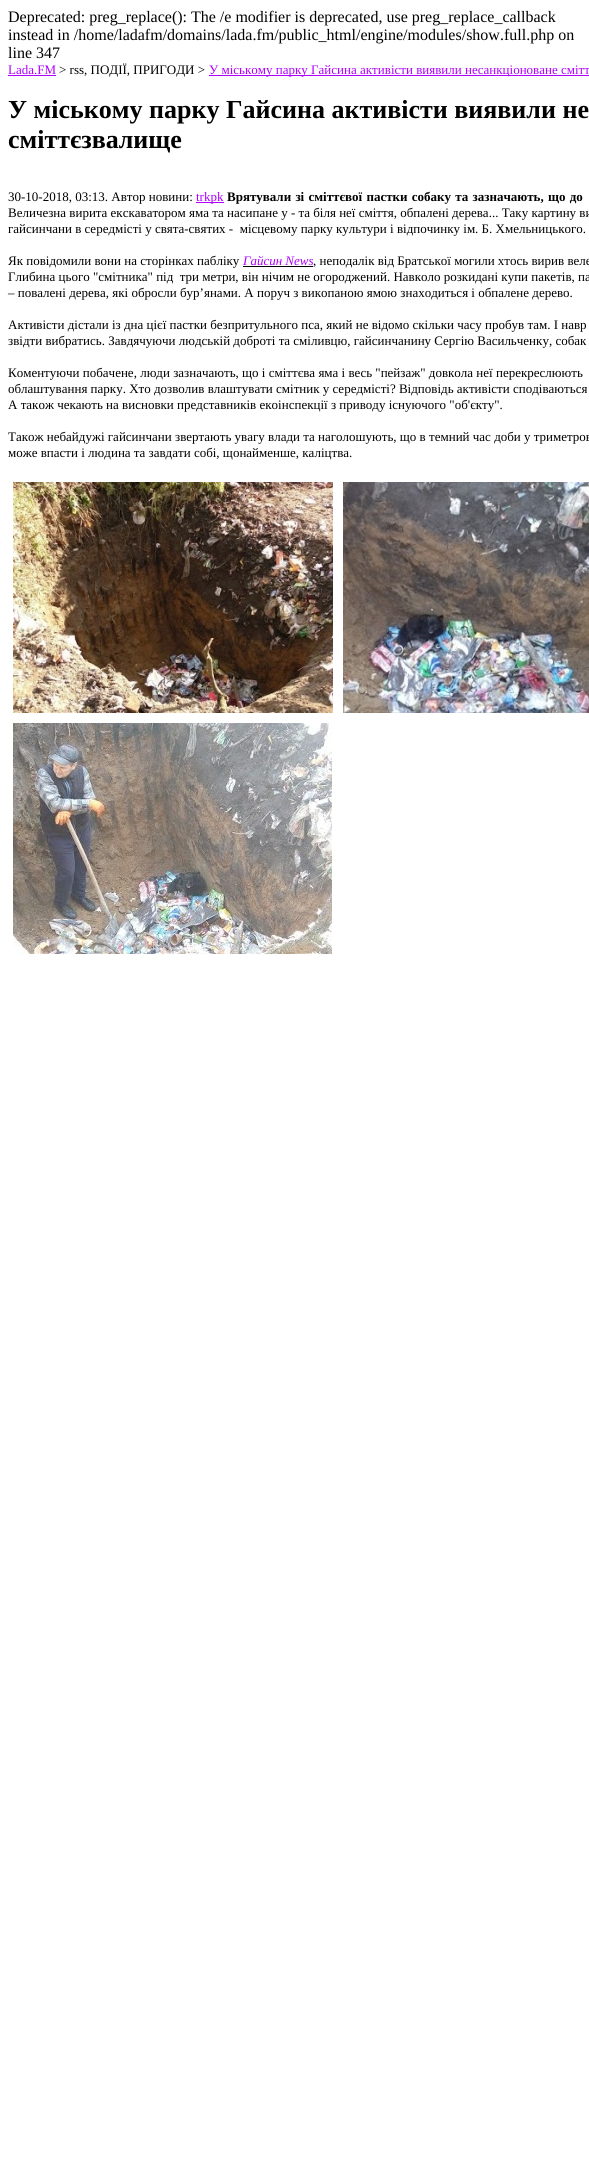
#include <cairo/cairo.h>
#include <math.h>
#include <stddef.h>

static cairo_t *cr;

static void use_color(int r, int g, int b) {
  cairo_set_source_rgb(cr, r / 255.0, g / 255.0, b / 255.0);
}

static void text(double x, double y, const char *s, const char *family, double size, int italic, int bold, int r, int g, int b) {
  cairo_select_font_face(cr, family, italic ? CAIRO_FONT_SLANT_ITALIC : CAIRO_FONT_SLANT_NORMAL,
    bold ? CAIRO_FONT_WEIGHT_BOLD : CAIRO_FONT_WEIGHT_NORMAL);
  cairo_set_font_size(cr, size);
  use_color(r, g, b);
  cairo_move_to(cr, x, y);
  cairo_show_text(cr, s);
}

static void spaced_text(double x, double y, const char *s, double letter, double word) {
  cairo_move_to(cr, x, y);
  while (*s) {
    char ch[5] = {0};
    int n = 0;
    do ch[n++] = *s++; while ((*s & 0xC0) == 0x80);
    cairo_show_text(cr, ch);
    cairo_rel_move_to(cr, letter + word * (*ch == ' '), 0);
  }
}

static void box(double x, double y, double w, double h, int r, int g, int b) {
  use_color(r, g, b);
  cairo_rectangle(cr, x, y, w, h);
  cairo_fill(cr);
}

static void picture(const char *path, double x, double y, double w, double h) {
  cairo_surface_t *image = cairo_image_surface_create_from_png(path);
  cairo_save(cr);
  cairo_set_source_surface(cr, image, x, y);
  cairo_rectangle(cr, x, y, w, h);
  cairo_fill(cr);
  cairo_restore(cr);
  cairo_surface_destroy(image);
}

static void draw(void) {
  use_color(255, 255, 255);
  cairo_paint(cr);
  box(8, 75, 48, 1, 175, 0, 255);
  box(209, 75, 380, 1, 175, 0, 255);
  box(243, 266, 70, 1, 0, 0, 0);
  picture("img_01.png", 13, 482, 320, 231);
  picture("img_02.png", 343, 482, 246, 231);
  picture("img_03.png", 13, 723, 319, 231);
  box(196, 202, 28, 1, 175, 0, 255);
  text(8, 22, "Deprecated: preg_replace(): The /e modifier is deprecated, use preg_replace_callback", "Liberation Serif", 16, 0, 0, 0, 0, 0);
  text(8, 40, "instead in /home/ladafm/domains/lada.fm/public_html/engine/modules/show.full.php on", "Liberation Serif", 16, 0, 0, 0, 0, 0);
  text(8, 58, "line 347", "Liberation Serif", 16, 0, 0, 0, 0, 0);
  text(8, 74, "Lada.FM", "Liberation Serif", 13, 0, 0, 175, 0, 255);
  text(59, 74, "> rss, ПОДІЇ, ПРИГОДИ >", "Liberation Serif", 13, 0, 0, 0, 0, 0);
  text(209, 74, "У міському парку Гайсина активісти виявили несанкціоноване смітт", "Liberation Serif", 13, 0, 0, 175, 0, 255);
  text(8, 118, "У міському парку Гайсина активісти виявили не", "Liberation Serif", 26, 0, 1, 0, 0, 0);
  text(8, 148, "сміттєзвалище", "Liberation Serif", 26, 0, 1, 0, 0, 0);
  cairo_set_font_size(cr, 13);
  spaced_text(227, 201, "Врятували зі сміттєвої пастки собаку та зазначають, що до", 0, 1);
  text(8, 217, "Величезна вирита екскаватором яма та насипане у - та біля неї сміття, обпалені дерева... Таку картину ви", "Liberation Serif", 13, 0, 0, 0, 0, 0);
  text(8, 233, "гайсинчани в середмісті у свята-святих -  місцевому парку культури і відпочинку ім. Б. Хмельницького.", "Liberation Serif", 13, 0, 0, 0, 0, 0);
  text(8, 265, "Як повідомили вони на сторінках пабліку", "Liberation Serif", 13, 0, 0, 0, 0, 0);
  text(243, 265, "Гайсин News", "Liberation Serif", 13, 1, 0, 175, 0, 255);
  text(313, 265, ", неподалік від Братської могили хтось вирив веле", "Liberation Serif", 13, 0, 0, 0, 0, 0);
  text(8, 281, "Глибина цього \"смітника\" під  три метри, він нічим не огороджений. Навколо розкидані купи пакетів, па", "Liberation Serif", 13, 0, 0, 0, 0, 0);
  text(8, 297, "– повалені дерева, які обросли бур’янами. А поруч з викопаною ямою знаходиться і обпалене дерево.", "Liberation Serif", 13, 0, 0, 0, 0, 0);
  text(8, 329, "Активісти дістали із дна цієї пастки безпритульного пса, який не відомо скільки часу пробув там. І навр", "Liberation Serif", 13, 0, 0, 0, 0, 0);
  text(8, 345, "звідти вибратись. Завдячуючи людській доброті та сміливцю, гайсинчанину Сергію Васильченку, собак", "Liberation Serif", 13, 0, 0, 0, 0, 0);
  text(8, 377, "Коментуючи побачене, люди зазначають, що і сміттєва яма і весь \"пейзаж\" довкола неї перекреслюють", "Liberation Serif", 13, 0, 0, 0, 0, 0);
  text(8, 393, "облаштування парку. Хто дозволив влаштувати смітник у середмісті? Відповідь активісти сподіваються", "Liberation Serif", 13, 0, 0, 0, 0, 0);
  text(8, 409, "А також чекають на висновки представників екоінспекції з приводу існуючого \"об'єкту\".", "Liberation Serif", 13, 0, 0, 0, 0, 0);
  text(8, 441, "Також небайдужі гайсинчани звертають увагу влади та наголошують, що в темний час доби у триметров", "Liberation Serif", 13, 0, 0, 0, 0, 0);
  text(8, 457, "може впасти і людина та завдати собі, щонайменше, каліцтва.", "Liberation Serif", 13, 0, 0, 0, 0, 0);
  text(8, 201, "30-10-2018, 03:13. Автор новини:", "Liberation Serif", 13, 0, 0, 0, 0, 0);
  text(196, 201, "trkpk", "Liberation Serif", 13, 0, 0, 175, 0, 255);
}

int main(void) {
  cairo_surface_t *surface = cairo_image_surface_create(CAIRO_FORMAT_RGB24, 589, 2159);
  cr = cairo_create(surface);
  cairo_font_options_t *options = cairo_font_options_create();
  cairo_font_options_set_hint_metrics(options, CAIRO_HINT_METRICS_OFF);
  cairo_font_options_set_hint_style(options, CAIRO_HINT_STYLE_NONE);
  cairo_set_font_options(cr, options);
  cairo_set_miter_limit(cr, 4);
  draw();
  cairo_surface_write_to_png(surface, "out.png");
  cairo_font_options_destroy(options);
  cairo_destroy(cr);
  cairo_surface_destroy(surface);
  return 0;
}
